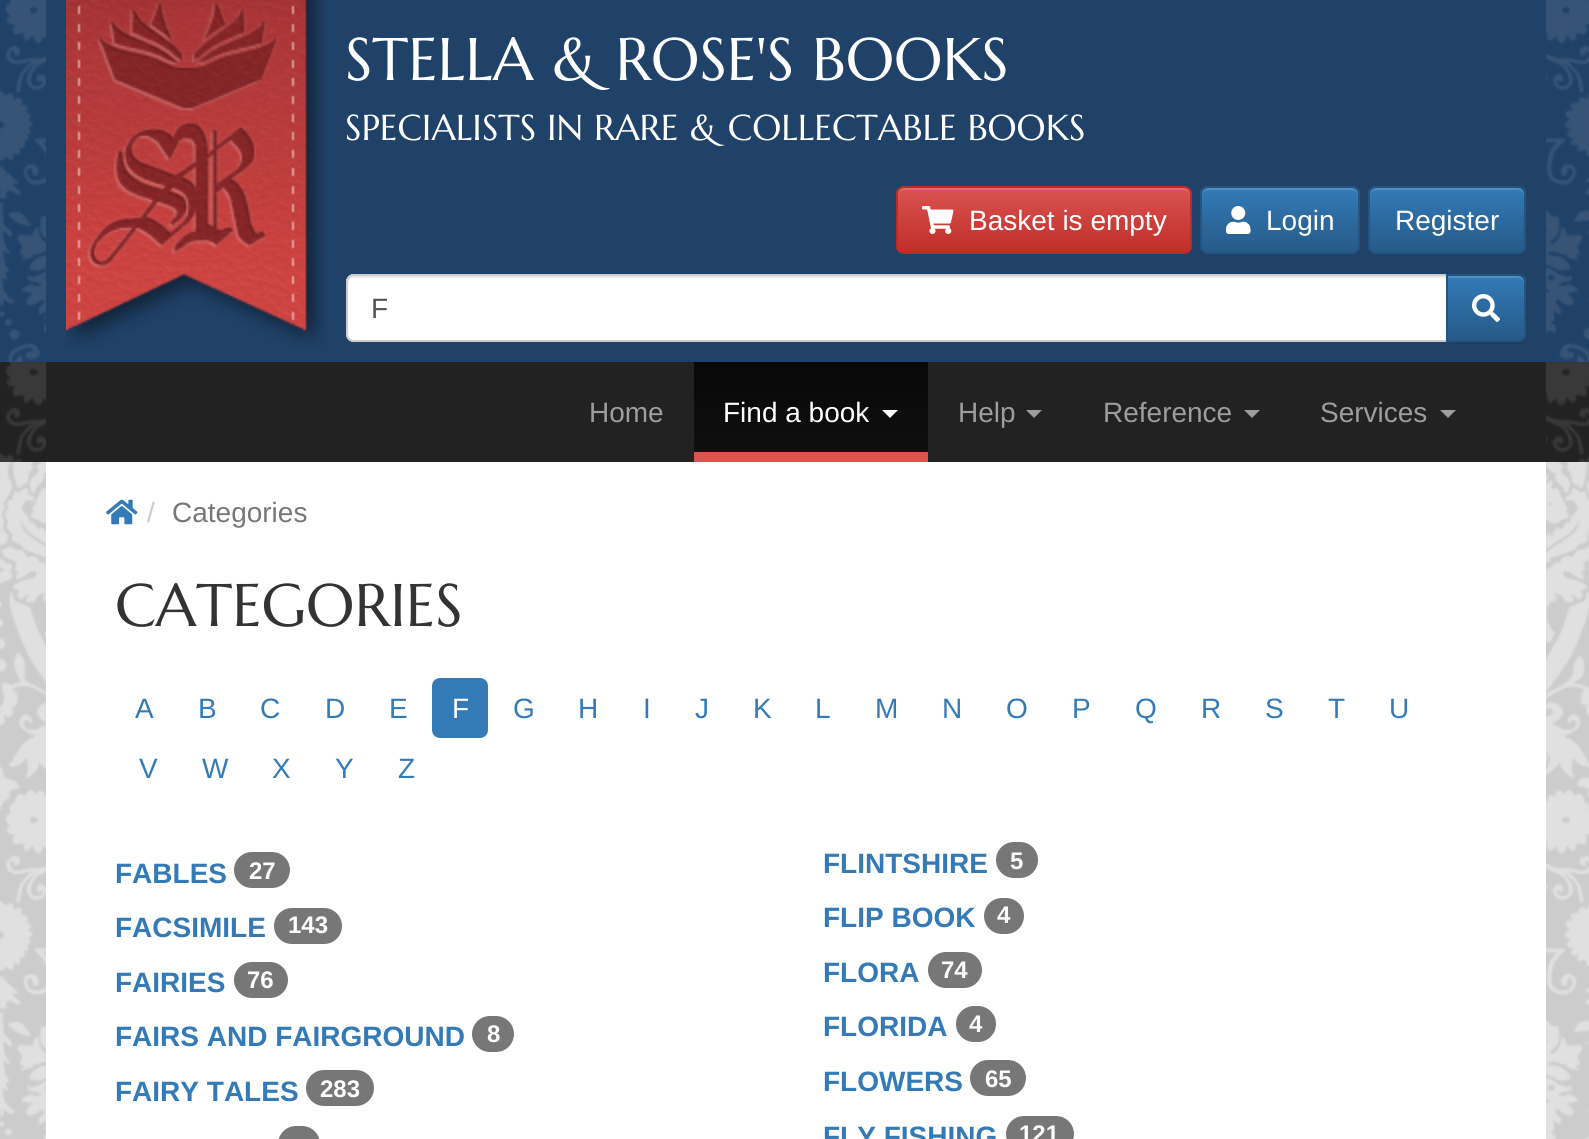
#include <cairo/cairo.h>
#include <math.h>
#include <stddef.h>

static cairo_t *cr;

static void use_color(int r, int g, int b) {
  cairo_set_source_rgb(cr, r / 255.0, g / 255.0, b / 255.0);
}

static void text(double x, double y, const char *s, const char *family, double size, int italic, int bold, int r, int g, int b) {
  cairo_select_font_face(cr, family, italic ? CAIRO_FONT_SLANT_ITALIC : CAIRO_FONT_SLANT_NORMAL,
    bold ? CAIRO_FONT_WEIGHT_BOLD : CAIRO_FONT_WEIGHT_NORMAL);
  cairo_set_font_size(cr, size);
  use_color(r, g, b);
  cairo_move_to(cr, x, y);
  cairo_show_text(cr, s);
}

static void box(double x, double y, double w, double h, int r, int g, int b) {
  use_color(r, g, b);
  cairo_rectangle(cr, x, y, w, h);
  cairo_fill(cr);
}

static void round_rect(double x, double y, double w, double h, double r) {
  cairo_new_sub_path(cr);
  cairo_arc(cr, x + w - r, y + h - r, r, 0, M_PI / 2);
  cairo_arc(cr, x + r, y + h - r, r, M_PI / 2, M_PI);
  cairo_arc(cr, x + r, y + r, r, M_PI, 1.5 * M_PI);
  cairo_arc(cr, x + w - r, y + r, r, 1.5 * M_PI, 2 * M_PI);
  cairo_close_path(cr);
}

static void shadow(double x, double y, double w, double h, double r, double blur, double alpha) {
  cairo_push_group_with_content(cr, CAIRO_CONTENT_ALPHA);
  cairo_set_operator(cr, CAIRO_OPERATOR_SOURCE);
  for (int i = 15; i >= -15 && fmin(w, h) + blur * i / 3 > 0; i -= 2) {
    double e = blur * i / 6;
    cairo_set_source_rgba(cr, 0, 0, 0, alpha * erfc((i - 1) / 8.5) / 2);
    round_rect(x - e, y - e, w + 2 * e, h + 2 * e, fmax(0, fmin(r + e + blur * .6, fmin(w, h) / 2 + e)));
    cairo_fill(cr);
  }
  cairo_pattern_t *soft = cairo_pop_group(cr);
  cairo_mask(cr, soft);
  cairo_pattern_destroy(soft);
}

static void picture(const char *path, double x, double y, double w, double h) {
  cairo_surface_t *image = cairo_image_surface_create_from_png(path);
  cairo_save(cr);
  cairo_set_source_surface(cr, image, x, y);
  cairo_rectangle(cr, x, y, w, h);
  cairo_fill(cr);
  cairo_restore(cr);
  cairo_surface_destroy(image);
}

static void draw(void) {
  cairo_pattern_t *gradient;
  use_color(204, 204, 204);
  cairo_paint(cr);
  picture("img_01.png", 0, 462, 1589, 677);
  box(0, 0, 1589, 362, 32, 65, 104);
  picture("img_02.png", 0, 0, 1589, 362);
  box(46, 0, 1500, 362, 32, 65, 104);
  picture("img_03.png", 66, 0, 261, 347);
  cairo_save(cr);
  round_rect(896, 186, 296, 68, 8);
  cairo_clip(cr);
  gradient = cairo_pattern_create_linear(1044, 188, 1044, 252);
  cairo_pattern_add_color_stop_rgba(gradient, 0, 0.851, 0.325, 0.31, 1);
  cairo_pattern_add_color_stop_rgba(gradient, 1, 0.757, 0.18, 0.165, 1);
  cairo_set_source(cr, gradient);
  cairo_pattern_destroy(gradient);
  cairo_rectangle(cr, 896, 188, 296, 64);
  cairo_fill(cr);
  cairo_restore(cr);
  cairo_set_source_rgba(cr, 1, 1, 1, 0.15);
  cairo_new_path(cr);
  cairo_move_to(cr, 904, 190);
  cairo_line_to(cr, 1184, 190);
  cairo_curve_to(cr, 1187, 190, 1190, 193, 1190, 196);
  cairo_line_to(cr, 1190, 194);
  cairo_curve_to(cr, 1190, 191, 1187, 188, 1184, 188);
  cairo_line_to(cr, 904, 188);
  cairo_curve_to(cr, 901, 188, 898, 191, 898, 194);
  cairo_line_to(cr, 898, 196);
  cairo_curve_to(cr, 898, 193, 901, 190, 904, 190);
  cairo_close_path(cr);
  cairo_fill(cr);
  round_rect(897, 187, 294, 66, 7);
  use_color(185, 44, 40);
  cairo_stroke(cr);
  picture("img_04.png", 922, 206, 32, 28);
  cairo_save(cr);
  round_rect(1200, 186, 160, 68, 8);
  cairo_clip(cr);
  gradient = cairo_pattern_create_linear(1280, 188, 1280, 252);
  cairo_pattern_add_color_stop_rgba(gradient, 0, 0.2, 0.478, 0.718, 1);
  cairo_pattern_add_color_stop_rgba(gradient, 1, 0.149, 0.353, 0.533, 1);
  cairo_set_source(cr, gradient);
  cairo_pattern_destroy(gradient);
  cairo_rectangle(cr, 1200, 188, 160, 64);
  cairo_fill(cr);
  cairo_restore(cr);
  cairo_set_source_rgba(cr, 1, 1, 1, 0.15);
  cairo_new_path(cr);
  cairo_move_to(cr, 1208, 190);
  cairo_line_to(cr, 1352, 190);
  cairo_curve_to(cr, 1355, 190, 1358, 193, 1358, 196);
  cairo_line_to(cr, 1358, 194);
  cairo_curve_to(cr, 1358, 191, 1355, 188, 1352, 188);
  cairo_line_to(cr, 1208, 188);
  cairo_curve_to(cr, 1205, 188, 1202, 191, 1202, 194);
  cairo_line_to(cr, 1202, 196);
  cairo_curve_to(cr, 1202, 193, 1205, 190, 1208, 190);
  cairo_close_path(cr);
  cairo_fill(cr);
  round_rect(1201, 187, 158, 66, 7);
  use_color(36, 85, 128);
  cairo_stroke(cr);
  picture("img_05.png", 1226, 206, 25, 28);
  cairo_save(cr);
  round_rect(1368, 186, 158, 68, 8);
  cairo_clip(cr);
  gradient = cairo_pattern_create_linear(1447, 188, 1447, 252);
  cairo_pattern_add_color_stop_rgba(gradient, 0, 0.2, 0.478, 0.718, 1);
  cairo_pattern_add_color_stop_rgba(gradient, 1, 0.149, 0.353, 0.533, 1);
  cairo_set_source(cr, gradient);
  cairo_pattern_destroy(gradient);
  cairo_rectangle(cr, 1368, 188, 158, 64);
  cairo_fill(cr);
  cairo_restore(cr);
  cairo_set_source_rgba(cr, 1, 1, 1, 0.15);
  cairo_new_path(cr);
  cairo_move_to(cr, 1376, 190);
  cairo_line_to(cr, 1518, 190);
  cairo_curve_to(cr, 1521, 190, 1524, 193, 1524, 196);
  cairo_line_to(cr, 1524, 194);
  cairo_curve_to(cr, 1524, 191, 1521, 188, 1518, 188);
  cairo_line_to(cr, 1376, 188);
  cairo_curve_to(cr, 1373, 188, 1370, 191, 1370, 194);
  cairo_line_to(cr, 1370, 196);
  cairo_curve_to(cr, 1370, 193, 1373, 190, 1376, 190);
  cairo_close_path(cr);
  cairo_fill(cr);
  round_rect(1369, 187, 156, 66, 7);
  use_color(36, 85, 128);
  cairo_stroke(cr);
  use_color(255, 255, 255);
  cairo_new_path(cr);
  cairo_move_to(cr, 354, 274);
  cairo_line_to(cr, 1448, 274);
  cairo_line_to(cr, 1448, 342);
  cairo_line_to(cr, 354, 342);
  cairo_curve_to(cr, 349.5, 342, 346, 338.5, 346, 334);
  cairo_line_to(cr, 346, 282);
  cairo_curve_to(cr, 346, 277.5, 349.5, 274, 354, 274);
  cairo_close_path(cr);
  cairo_fill(cr);
  use_color(236, 236, 236);
  cairo_new_path(cr);
  cairo_move_to(cr, 354, 278);
  cairo_line_to(cr, 1446, 278);
  cairo_line_to(cr, 1446, 276);
  cairo_line_to(cr, 354, 276);
  cairo_curve_to(cr, 349, 276, 348, 280, 348, 284);
  cairo_curve_to(cr, 348, 281, 351, 278, 354, 278);
  cairo_close_path(cr);
  cairo_fill(cr);
  cairo_new_path(cr);
  cairo_move_to(cr, 354, 275);
  cairo_line_to(cr, 1447, 275);
  cairo_line_to(cr, 1447, 341);
  cairo_line_to(cr, 354, 341);
  cairo_curve_to(cr, 350, 341, 347, 338, 347, 334);
  cairo_line_to(cr, 347, 282);
  cairo_curve_to(cr, 347, 278, 350, 275, 354, 275);
  cairo_close_path(cr);
  use_color(204, 204, 204);
  cairo_stroke(cr);
  use_color(0, 0, 0);
  shadow(1446, 276, 80, 68, 8, 1, 0.07);
  cairo_save(cr);
  cairo_new_path(cr);
  cairo_move_to(cr, 1446, 274);
  cairo_line_to(cr, 1518, 274);
  cairo_curve_to(cr, 1522.5, 274, 1526, 277.5, 1526, 282);
  cairo_line_to(cr, 1526, 334);
  cairo_curve_to(cr, 1526, 338.5, 1522.5, 342, 1518, 342);
  cairo_line_to(cr, 1446, 342);
  cairo_close_path(cr);
  cairo_clip(cr);
  gradient = cairo_pattern_create_linear(1486, 276, 1486, 340);
  cairo_pattern_add_color_stop_rgba(gradient, 0, 0.2, 0.478, 0.718, 1);
  cairo_pattern_add_color_stop_rgba(gradient, 1, 0.149, 0.353, 0.533, 1);
  cairo_set_source(cr, gradient);
  cairo_pattern_destroy(gradient);
  cairo_rectangle(cr, 1448, 276, 78, 64);
  cairo_fill(cr);
  cairo_restore(cr);
  cairo_set_source_rgba(cr, 1, 1, 1, 0.15);
  cairo_new_path(cr);
  cairo_move_to(cr, 1448, 278);
  cairo_line_to(cr, 1518, 278);
  cairo_curve_to(cr, 1521, 278, 1524, 281, 1524, 284);
  cairo_line_to(cr, 1524, 282);
  cairo_curve_to(cr, 1524, 279, 1521, 276, 1518, 276);
  cairo_line_to(cr, 1448, 276);
  cairo_close_path(cr);
  cairo_fill(cr);
  cairo_new_path(cr);
  cairo_move_to(cr, 1447, 275);
  cairo_line_to(cr, 1518, 275);
  cairo_curve_to(cr, 1522, 275, 1525, 278, 1525, 282);
  cairo_line_to(cr, 1525, 334);
  cairo_curve_to(cr, 1525, 338, 1522, 341, 1518, 341);
  cairo_line_to(cr, 1447, 341);
  cairo_close_path(cr);
  use_color(36, 85, 128);
  cairo_stroke(cr);
  picture("img_06.png", 1472, 294, 28, 28);
  box(0, 362, 1589, 100, 34, 34, 34);
  picture("img_07.png", 0, 362, 1589, 100);
  box(46, 362, 1500, 100, 34, 34, 34);
  gradient = cairo_pattern_create_linear(811, 362, 811, 452);
  cairo_pattern_add_color_stop_rgba(gradient, 0, 0.031, 0.031, 0.031, 1);
  cairo_pattern_add_color_stop_rgba(gradient, 1, 0.059, 0.059, 0.059, 1);
  cairo_set_source(cr, gradient);
  cairo_pattern_destroy(gradient);
  cairo_rectangle(cr, 694, 362, 234, 90);
  cairo_fill(cr);
  box(694, 452, 234, 10, 217, 83, 79);
  use_color(255, 255, 255);
  cairo_new_path(cr);
  cairo_move_to(cr, 882, 410);
  cairo_line_to(cr, 898, 410);
  cairo_line_to(cr, 890, 418);
  cairo_close_path(cr);
  cairo_fill(cr);
  use_color(157, 157, 157);
  cairo_new_path(cr);
  cairo_move_to(cr, 1026, 410);
  cairo_line_to(cr, 1042, 410);
  cairo_line_to(cr, 1034, 418);
  cairo_close_path(cr);
  cairo_fill(cr);
  cairo_new_path(cr);
  cairo_move_to(cr, 1244, 410);
  cairo_line_to(cr, 1260, 410);
  cairo_line_to(cr, 1252, 418);
  cairo_close_path(cr);
  cairo_fill(cr);
  cairo_new_path(cr);
  cairo_move_to(cr, 1440, 410);
  cairo_line_to(cr, 1456, 410);
  cairo_line_to(cr, 1448, 418);
  cairo_close_path(cr);
  cairo_fill(cr);
  box(46, 462, 1500, 677, 255, 255, 255);
  picture("img_08.png", 106, 499, 32, 26);
  use_color(51, 122, 183);
  round_rect(432, 678, 56, 60, 8);
  cairo_fill(cr);
  use_color(119, 119, 119);
  round_rect(234, 852, 56, 36, 18);
  cairo_fill(cr);
  round_rect(996, 842, 42, 36, 18);
  cairo_fill(cr);
  round_rect(274, 908, 68, 36, 18);
  cairo_fill(cr);
  round_rect(984, 898, 40, 36, 18);
  cairo_fill(cr);
  round_rect(234, 962, 54, 36, 18);
  cairo_fill(cr);
  round_rect(928, 952, 54, 36, 18);
  cairo_fill(cr);
  round_rect(472, 1016, 42, 36, 18);
  cairo_fill(cr);
  round_rect(956, 1006, 40, 36, 18);
  cairo_fill(cr);
  round_rect(306, 1070, 68, 36, 18);
  cairo_fill(cr);
  round_rect(970, 1060, 56, 36, 18);
  cairo_fill(cr);
  round_rect(278, 1126, 42, 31, 18);
  cairo_fill(cr);
  round_rect(1006, 1116, 68, 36, 18);
  cairo_fill(cr);
  text(345, 80, "STELLA & ROSE'S BOOKS", "Marcellus", 60, 0, 0, 255, 255, 255);
  text(345, 140, "SPECIALISTS IN RARE & COLLECTABLE BOOKS", "Marcellus", 36, 0, 0, 255, 255, 255);
  text(969, 230, "Basket is empty", "Liberation Sans", 28, 0, 0, 255, 255, 255);
  text(1266, 230, "Login", "Liberation Sans", 28, 0, 0, 255, 255, 255);
  text(1395, 230, "Register", "Liberation Sans", 28, 0, 0, 255, 255, 255);
  text(371, 318, "F", "Liberation Sans", 28, 0, 0, 85, 85, 85);
  text(589, 422, "Home", "Liberation Sans", 28, 0, 0, 157, 157, 157);
  text(723, 422, "Find a book", "Liberation Sans", 28, 0, 0, 255, 255, 255);
  text(958, 422, "Help", "Liberation Sans", 28, 0, 0, 157, 157, 157);
  text(1103, 422, "Reference", "Liberation Sans", 28, 0, 0, 157, 157, 157);
  text(1320, 422, "Services", "Liberation Sans", 28, 0, 0, 157, 157, 157);
  text(147, 522, "/", "Liberation Sans", 28, 0, 0, 204, 204, 204);
  text(172, 522, "Categories", "Liberation Sans", 28, 0, 0, 119, 119, 119);
  text(115, 626, "CATEGORIES", "Marcellus", 60, 0, 0, 51, 51, 51);
  text(135, 718, "A", "Liberation Sans", 28, 0, 0, 51, 122, 183);
  text(198, 718, "B", "Liberation Sans", 28, 0, 0, 51, 122, 183);
  text(260, 718, "C", "Liberation Sans", 28, 0, 0, 51, 122, 183);
  text(325, 718, "D", "Liberation Sans", 28, 0, 0, 51, 122, 183);
  text(389, 718, "E", "Liberation Sans", 28, 0, 0, 51, 122, 183);
  text(452, 718, "F", "Liberation Sans", 28, 0, 0, 255, 255, 255);
  text(513, 718, "G", "Liberation Sans", 28, 0, 0, 51, 122, 183);
  text(578, 718, "H", "Liberation Sans", 28, 0, 0, 51, 122, 183);
  text(643, 718, "I", "Liberation Sans", 28, 0, 0, 51, 122, 183);
  text(695, 718, "J", "Liberation Sans", 28, 0, 0, 51, 122, 183);
  text(753, 718, "K", "Liberation Sans", 28, 0, 0, 51, 122, 183);
  text(815, 718, "L", "Liberation Sans", 28, 0, 0, 51, 122, 183);
  text(875, 718, "M", "Liberation Sans", 28, 0, 0, 51, 122, 183);
  text(942, 718, "N", "Liberation Sans", 28, 0, 0, 51, 122, 183);
  text(1006, 718, "O", "Liberation Sans", 28, 0, 0, 51, 122, 183);
  text(1072, 718, "P", "Liberation Sans", 28, 0, 0, 51, 122, 183);
  text(1135, 718, "Q", "Liberation Sans", 28, 0, 0, 51, 122, 183);
  text(1201, 718, "R", "Liberation Sans", 28, 0, 0, 51, 122, 183);
  text(1265, 718, "S", "Liberation Sans", 28, 0, 0, 51, 122, 183);
  text(1328, 718, "T", "Liberation Sans", 28, 0, 0, 51, 122, 183);
  text(1389, 718, "U", "Liberation Sans", 28, 0, 0, 51, 122, 183);
  text(139, 778, "V", "Liberation Sans", 28, 0, 0, 51, 122, 183);
  text(202, 778, "W", "Liberation Sans", 28, 0, 0, 51, 122, 183);
  text(272, 778, "X", "Liberation Sans", 28, 0, 0, 51, 122, 183);
  text(335, 778, "Y", "Liberation Sans", 28, 0, 0, 51, 122, 183);
  text(398, 778, "Z", "Liberation Sans", 28, 0, 0, 51, 122, 183);
  text(115, 883, "FABLES", "Liberation Sans", 28, 0, 1, 51, 122, 183);
  text(249, 879, "27", "Liberation Sans", 24, 0, 1, 255, 255, 255);
  text(823, 873, "FLINTSHIRE", "Liberation Sans", 28, 0, 1, 51, 122, 183);
  text(1010, 869, "5", "Liberation Sans", 24, 0, 1, 255, 255, 255);
  text(115, 937, "FACSIMILE", "Liberation Sans", 28, 0, 1, 51, 122, 183);
  text(288, 933, "143", "Liberation Sans", 24, 0, 1, 255, 255, 255);
  text(823, 927, "FLIP BOOK", "Liberation Sans", 28, 0, 1, 51, 122, 183);
  text(997, 923, "4", "Liberation Sans", 24, 0, 1, 255, 255, 255);
  text(115, 992, "FAIRIES", "Liberation Sans", 28, 0, 1, 51, 122, 183);
  text(247, 988, "76", "Liberation Sans", 24, 0, 1, 255, 255, 255);
  text(823, 982, "FLORA", "Liberation Sans", 28, 0, 1, 51, 122, 183);
  text(941, 978, "74", "Liberation Sans", 24, 0, 1, 255, 255, 255);
  text(115, 1046, "FAIRS AND FAIRGROUND", "Liberation Sans", 28, 0, 1, 51, 122, 183);
  text(487, 1042, "8", "Liberation Sans", 24, 0, 1, 255, 255, 255);
  text(823, 1036, "FLORIDA", "Liberation Sans", 28, 0, 1, 51, 122, 183);
  text(969, 1032, "4", "Liberation Sans", 24, 0, 1, 255, 255, 255);
  text(115, 1101, "FAIRY TALES", "Liberation Sans", 28, 0, 1, 51, 122, 183);
  text(320, 1097, "283", "Liberation Sans", 24, 0, 1, 255, 255, 255);
  text(823, 1091, "FLOWERS", "Liberation Sans", 28, 0, 1, 51, 122, 183);
  text(985, 1087, "65", "Liberation Sans", 24, 0, 1, 255, 255, 255);
  text(823, 1146, "FLY FISHING", "Liberation Sans", 28, 0, 1, 51, 122, 183);
  text(1019, 1142, "121", "Liberation Sans", 24, 0, 1, 255, 255, 255);
}

int main(void) {
  cairo_surface_t *surface = cairo_image_surface_create(CAIRO_FORMAT_RGB24, 1589, 1139);
  cr = cairo_create(surface);
  cairo_font_options_t *options = cairo_font_options_create();
  cairo_font_options_set_hint_metrics(options, CAIRO_HINT_METRICS_OFF);
  cairo_font_options_set_hint_style(options, CAIRO_HINT_STYLE_NONE);
  cairo_set_font_options(cr, options);
  cairo_set_miter_limit(cr, 4);
  draw();
  cairo_surface_write_to_png(surface, "out.png");
  cairo_font_options_destroy(options);
  cairo_destroy(cr);
  cairo_surface_destroy(surface);
  return 0;
}
